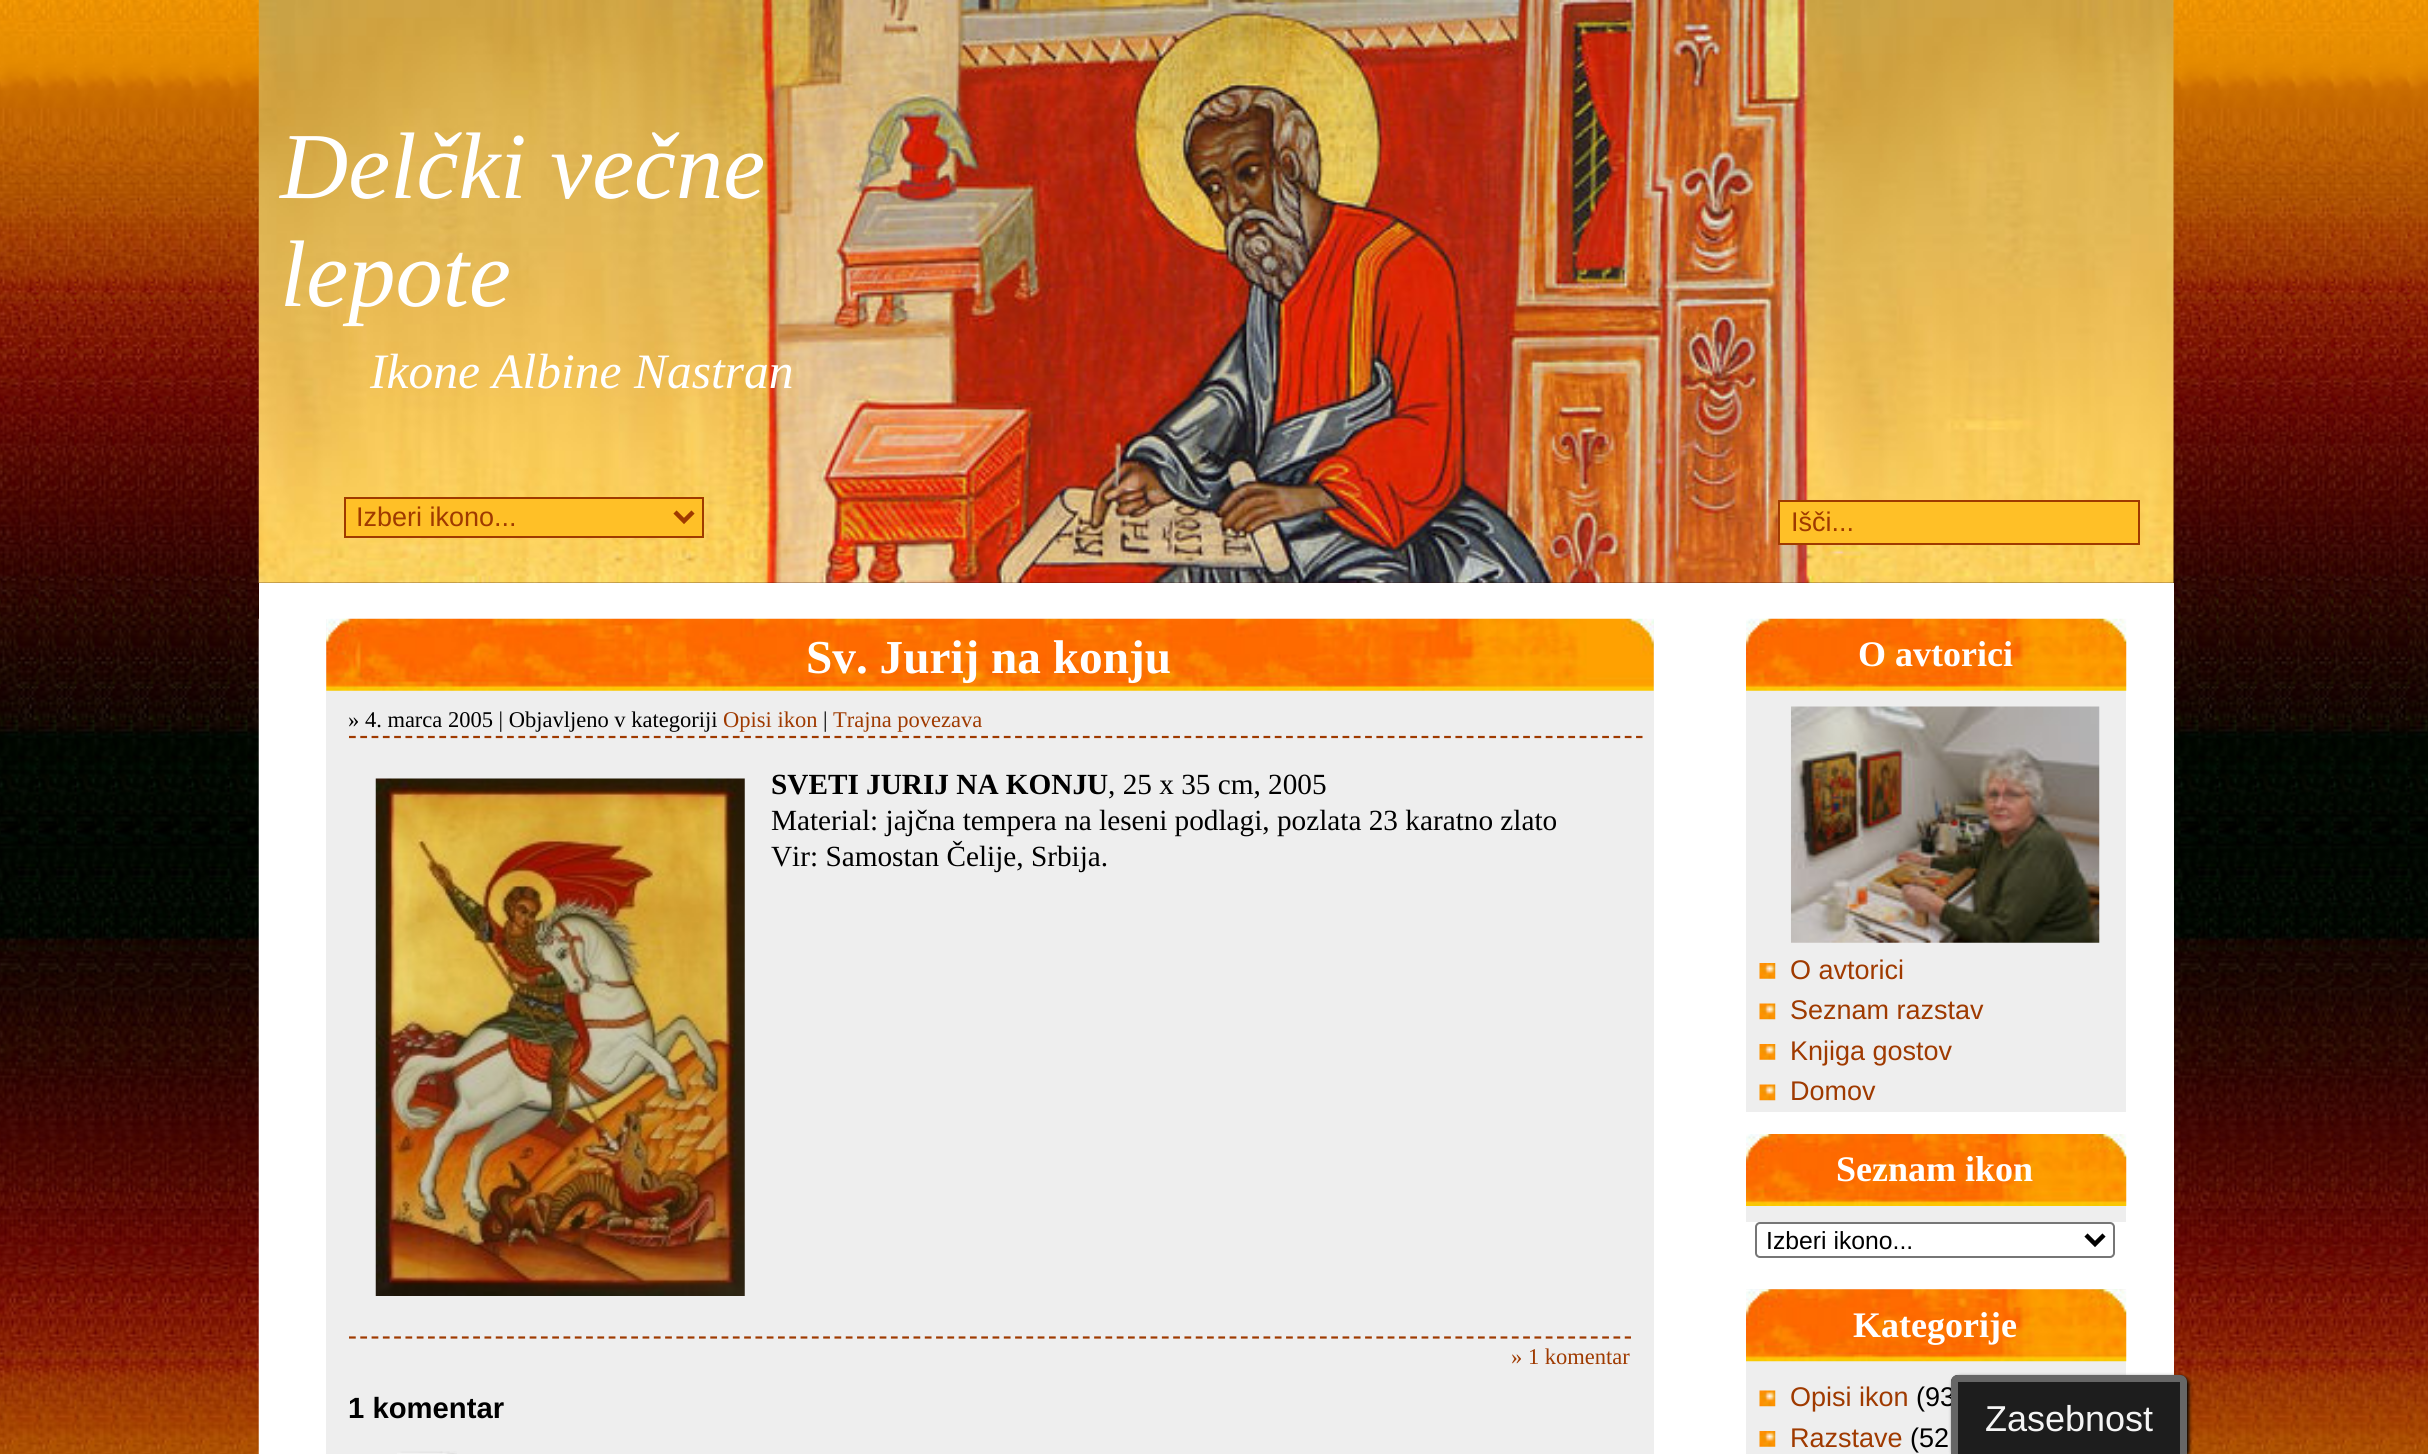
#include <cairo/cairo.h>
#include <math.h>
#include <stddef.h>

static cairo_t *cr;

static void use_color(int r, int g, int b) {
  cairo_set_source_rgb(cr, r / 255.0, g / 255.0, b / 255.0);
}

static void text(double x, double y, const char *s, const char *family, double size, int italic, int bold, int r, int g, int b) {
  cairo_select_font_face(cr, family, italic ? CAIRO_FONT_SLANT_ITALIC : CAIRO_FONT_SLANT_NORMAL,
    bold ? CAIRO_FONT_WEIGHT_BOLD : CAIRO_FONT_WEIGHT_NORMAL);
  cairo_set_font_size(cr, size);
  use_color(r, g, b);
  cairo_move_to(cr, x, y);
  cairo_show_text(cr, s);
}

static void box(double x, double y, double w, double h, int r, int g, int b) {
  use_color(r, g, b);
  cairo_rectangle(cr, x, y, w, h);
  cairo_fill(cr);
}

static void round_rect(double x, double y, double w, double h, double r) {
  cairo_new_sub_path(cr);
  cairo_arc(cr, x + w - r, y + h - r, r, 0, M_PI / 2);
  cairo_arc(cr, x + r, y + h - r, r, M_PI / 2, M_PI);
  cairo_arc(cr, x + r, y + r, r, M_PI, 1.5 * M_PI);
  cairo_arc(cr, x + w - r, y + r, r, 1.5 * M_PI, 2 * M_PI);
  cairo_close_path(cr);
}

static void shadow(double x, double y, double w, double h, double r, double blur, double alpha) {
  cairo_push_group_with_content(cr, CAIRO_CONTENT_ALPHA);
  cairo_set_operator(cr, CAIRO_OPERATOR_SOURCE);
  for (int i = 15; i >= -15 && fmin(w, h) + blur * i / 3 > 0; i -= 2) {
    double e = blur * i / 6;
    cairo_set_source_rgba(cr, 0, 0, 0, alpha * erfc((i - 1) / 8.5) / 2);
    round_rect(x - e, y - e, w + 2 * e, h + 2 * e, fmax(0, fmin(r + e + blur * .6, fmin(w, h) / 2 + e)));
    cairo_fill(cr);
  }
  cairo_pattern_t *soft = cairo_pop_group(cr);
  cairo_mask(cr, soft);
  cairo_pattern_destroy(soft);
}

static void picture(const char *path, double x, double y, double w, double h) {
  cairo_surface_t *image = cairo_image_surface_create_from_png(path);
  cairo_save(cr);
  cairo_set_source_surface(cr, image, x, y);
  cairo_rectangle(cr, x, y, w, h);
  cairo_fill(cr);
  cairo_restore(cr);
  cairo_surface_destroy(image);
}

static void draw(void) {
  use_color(255, 255, 255);
  cairo_paint(cr);
  picture("img_01.png", 0, 0, 2428, 1454);
  picture("img_02.png", 258, 0, 1916, 583);
  use_color(255, 192, 39);
  cairo_rectangle(cr, 345, 498, 358, 39);
  cairo_fill_preserve(cr);
  use_color(159, 58, 0);
  cairo_stroke(cr);
  cairo_new_path(cr);
  cairo_move_to(cr, 675, 512);
  cairo_line_to(cr, 684, 521);
  cairo_line_to(cr, 693, 512);
  cairo_set_line_width(cr, 4.5);
  cairo_stroke(cr);
  use_color(255, 192, 39);
  cairo_rectangle(cr, 1779, 501, 360, 43);
  cairo_fill_preserve(cr);
  use_color(159, 58, 0);
  cairo_set_line_width(cr, 2);
  cairo_stroke(cr);
  box(259, 583, 1915, 871, 255, 255, 255);
  picture("img_03.png", 258, 618, 1, 836);
  box(326, 619, 1328, 835, 238, 238, 238);
  picture("img_04.png", 326, 618, 1328, 73);
  cairo_new_path(cr);
  cairo_move_to(cr, 349, 737);
  cairo_line_to(cr, 1642.5, 737);
  use_color(159, 58, 0);
  cairo_set_line_width(cr, 2.2);
  cairo_set_dash(cr, (double[]){6.75, 4.54}, 2, 0);
  cairo_stroke(cr);
  picture("img_05.png", 375, 778, 370, 518);
  cairo_new_path(cr);
  cairo_move_to(cr, 349, 1337.5);
  cairo_line_to(cr, 1631, 1337.5);
  cairo_stroke(cr);
  picture("img_06.png", 397, 1451, 60, 3);
  box(1746, 690, 380, 422, 238, 238, 238);
  picture("img_07.png", 1746, 618, 381, 73);
  picture("img_08.png", 1791, 706, 309, 237);
  picture("img_09.png", 1759, 963, 17, 16);
  picture("img_10.png", 1759, 1003, 17, 17);
  picture("img_09.png", 1759, 1044, 17, 16);
  picture("img_10.png", 1759, 1084, 17, 17);
  box(1746, 1206, 380, 16, 238, 238, 238);
  picture("img_11.png", 1746, 1134, 381, 72);
  round_rect(1756, 1223, 358, 34, 4);
  use_color(118, 118, 118);
  cairo_set_line_width(cr, 2);
  cairo_set_dash(cr, NULL, 0, 0);
  cairo_stroke(cr);
  cairo_new_path(cr);
  cairo_move_to(cr, 2086, 1235);
  cairo_line_to(cr, 2095, 1244);
  cairo_line_to(cr, 2104, 1235);
  use_color(0, 0, 0);
  cairo_set_line_width(cr, 4.5);
  cairo_stroke(cr);
  box(1746, 1289, 380, 88, 238, 238, 238);
  picture("img_12.png", 1746, 1289, 381, 73);
  box(1746, 1377, 207, 77, 238, 238, 238);
  picture("img_10.png", 1759, 1390, 17, 17);
  picture("img_09.png", 1759, 1431, 17, 16);
  use_color(0, 0, 0);
  shadow(1953, 1377, 236, 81, 7, 2, 1);
  text(280, 198, "Delčki večne", "Liberation Serif", 94.5, 1, 0, 255, 255, 255);
  text(280, 306, "lepote", "Liberation Serif", 94.5, 1, 0, 255, 255, 255);
  text(370, 388, "Ikone Albine Nastran", "Liberation Serif", 49.5, 1, 0, 255, 255, 255);
  text(356, 526, "Izberi ikono...", "Liberation Sans", 27, 0, 0, 159, 58, 0);
  text(1791, 531, "Išči...", "Liberation Sans", 27, 0, 0, 159, 58, 0);
  text(806, 673, "Sv. Jurij na konju", "Liberation Serif", 47.25, 0, 1, 255, 255, 255);
  text(348, 727, "» 4. marca 2005 | Objavljeno v kategoriji", "Liberation Serif", 22.5, 0, 0, 0, 0, 0);
  text(723, 727, "Opisi ikon", "Liberation Serif", 22.5, 0, 0, 159, 58, 0);
  text(823, 727, "|", "Liberation Serif", 22.5, 0, 0, 0, 0, 0);
  text(833, 727, "Trajna povezava", "Liberation Serif", 22.5, 0, 0, 159, 58, 0);
  text(771, 794, "SVETI JURIJ NA KONJU", "Liberation Serif", 29.25, 0, 1, 0, 0, 0);
  text(1108, 794, ", 25 x 35 cm, 2005", "Liberation Serif", 29.25, 0, 0, 0, 0, 0);
  text(771, 830, "Material: jajčna tempera na leseni podlagi, pozlata 23 karatno zlato", "Liberation Serif", 29.25, 0, 0, 0, 0, 0);
  text(771, 866, "Vir: Samostan Čelije, Srbija.", "Liberation Serif", 29.25, 0, 0, 0, 0, 0);
  text(1511, 1364, "» 1 komentar", "Liberation Serif", 22.5, 0, 0, 159, 58, 0);
  text(348, 1418, "1 komentar", "Liberation Sans", 29.25, 0, 1, 0, 0, 0);
  text(1858, 666, "O avtorici", "Liberation Serif", 36, 0, 1, 255, 255, 255);
  text(1790, 979, "O avtorici", "Liberation Sans", 27, 0, 0, 159, 58, 0);
  text(1790, 1019, "Seznam razstav", "Liberation Sans", 27, 0, 0, 159, 58, 0);
  text(1790, 1060, "Knjiga gostov", "Liberation Sans", 27, 0, 0, 159, 58, 0);
  text(1790, 1100, "Domov", "Liberation Sans", 27, 0, 0, 159, 58, 0);
  text(1836, 1181, "Seznam ikon", "Liberation Serif", 36, 0, 1, 255, 255, 255);
  text(1766, 1249, "Izberi ikono...", "Liberation Sans", 24.75, 0, 0, 0, 0, 0);
  text(1853, 1337, "Kategorije", "Liberation Serif", 36, 0, 1, 255, 255, 255);
  text(1790, 1406, "Opisi ikon", "Liberation Sans", 27, 0, 0, 159, 58, 0);
  text(1916, 1406, "(93", "Liberation Sans", 27, 0, 0, 0, 0, 0);
  text(1790, 1447, "Razstave", "Liberation Sans", 27, 0, 0, 159, 58, 0);
  text(1910, 1447, "(52", "Liberation Sans", 27, 0, 0, 0, 0, 0);
  use_color(29, 29, 29);
  cairo_new_path(cr);
  cairo_move_to(cr, 1958, 1375);
  cairo_line_to(cr, 2180, 1375);
  cairo_curve_to(cr, 2184, 1375, 2187, 1378, 2187, 1382);
  cairo_line_to(cr, 2187, 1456);
  cairo_line_to(cr, 1951, 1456);
  cairo_line_to(cr, 1951, 1382);
  cairo_curve_to(cr, 1951, 1378, 1954, 1375, 1958, 1375);
  cairo_close_path(cr);
  cairo_fill(cr);
  use_color(102, 102, 102);
  cairo_set_fill_rule(cr, CAIRO_FILL_RULE_EVEN_ODD);
  cairo_new_path(cr);
  cairo_move_to(cr, 1958, 1375);
  cairo_line_to(cr, 2180, 1375);
  cairo_curve_to(cr, 2184, 1375, 2187, 1378, 2187, 1382);
  cairo_line_to(cr, 2187, 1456);
  cairo_line_to(cr, 1951, 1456);
  cairo_line_to(cr, 1951, 1382);
  cairo_curve_to(cr, 1951, 1378, 1954, 1375, 1958, 1375);
  cairo_close_path(cr);
  cairo_move_to(cr, 1958, 1382);
  cairo_line_to(cr, 2180, 1382);
  cairo_line_to(cr, 2180, 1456);
  cairo_line_to(cr, 1958, 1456);
  cairo_close_path(cr);
  cairo_fill(cr);
  text(1985, 1431, "Zasebnost", "Liberation Sans", 36, 0, 0, 245, 245, 245);
}

int main(void) {
  cairo_surface_t *surface = cairo_image_surface_create(CAIRO_FORMAT_RGB24, 2428, 1454);
  cr = cairo_create(surface);
  cairo_font_options_t *options = cairo_font_options_create();
  cairo_font_options_set_hint_metrics(options, CAIRO_HINT_METRICS_OFF);
  cairo_font_options_set_hint_style(options, CAIRO_HINT_STYLE_NONE);
  cairo_set_font_options(cr, options);
  cairo_set_miter_limit(cr, 4);
  draw();
  cairo_surface_write_to_png(surface, "out.png");
  cairo_font_options_destroy(options);
  cairo_destroy(cr);
  cairo_surface_destroy(surface);
  return 0;
}
